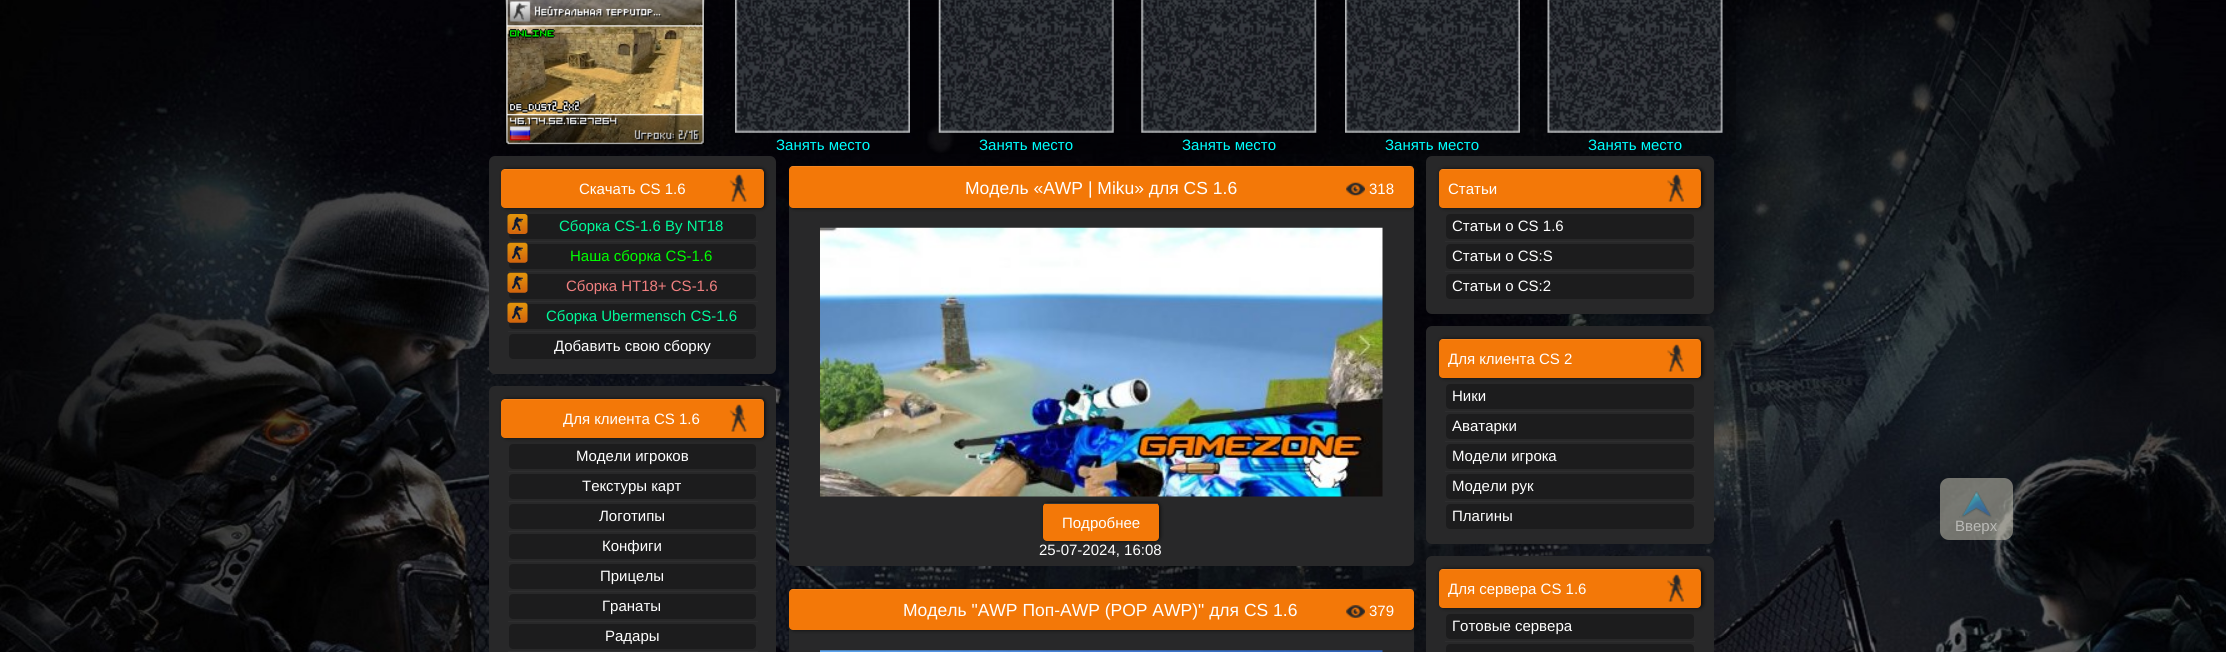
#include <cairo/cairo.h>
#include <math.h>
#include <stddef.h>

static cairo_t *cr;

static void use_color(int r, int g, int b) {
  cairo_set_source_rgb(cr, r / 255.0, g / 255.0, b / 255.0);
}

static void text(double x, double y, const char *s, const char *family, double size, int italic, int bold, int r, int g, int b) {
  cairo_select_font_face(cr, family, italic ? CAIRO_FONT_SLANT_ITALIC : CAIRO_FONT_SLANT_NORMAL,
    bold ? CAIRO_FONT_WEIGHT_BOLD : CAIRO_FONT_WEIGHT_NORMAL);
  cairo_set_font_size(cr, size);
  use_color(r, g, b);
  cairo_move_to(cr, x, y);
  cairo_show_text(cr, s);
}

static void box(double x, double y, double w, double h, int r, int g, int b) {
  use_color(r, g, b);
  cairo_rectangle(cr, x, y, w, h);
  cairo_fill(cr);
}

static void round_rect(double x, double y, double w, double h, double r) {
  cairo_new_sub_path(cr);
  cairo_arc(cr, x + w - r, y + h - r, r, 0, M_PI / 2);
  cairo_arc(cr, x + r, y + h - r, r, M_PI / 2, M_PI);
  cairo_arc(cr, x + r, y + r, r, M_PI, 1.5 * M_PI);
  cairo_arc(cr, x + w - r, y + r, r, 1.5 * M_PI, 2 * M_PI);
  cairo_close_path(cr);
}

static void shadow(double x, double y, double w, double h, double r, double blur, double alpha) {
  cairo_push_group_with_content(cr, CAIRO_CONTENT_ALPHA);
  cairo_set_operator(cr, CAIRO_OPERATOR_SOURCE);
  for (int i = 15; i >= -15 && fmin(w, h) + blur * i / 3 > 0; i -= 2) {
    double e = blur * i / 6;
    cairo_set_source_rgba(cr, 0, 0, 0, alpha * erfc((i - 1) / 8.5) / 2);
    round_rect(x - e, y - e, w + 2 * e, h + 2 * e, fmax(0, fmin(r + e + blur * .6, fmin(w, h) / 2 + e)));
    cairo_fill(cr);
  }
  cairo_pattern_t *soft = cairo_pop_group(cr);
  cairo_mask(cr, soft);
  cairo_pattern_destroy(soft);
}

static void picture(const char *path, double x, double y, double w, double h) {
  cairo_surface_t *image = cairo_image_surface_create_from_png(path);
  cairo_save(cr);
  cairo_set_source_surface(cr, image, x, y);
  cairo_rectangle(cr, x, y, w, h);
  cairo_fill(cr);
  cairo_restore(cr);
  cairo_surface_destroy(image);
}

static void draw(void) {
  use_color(255, 255, 255);
  cairo_paint(cr);
  picture("img_01.png", 0, 0, 2226, 652);
  cairo_set_source_rgba(cr, 0, 0, 0, 0.2);
  round_rect(491, -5, 229, 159, 5);
  cairo_fill(cr);
  picture("img_02.png", 505, 0, 200, 145);
  round_rect(723, -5, 200, 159, 5);
  cairo_fill(cr);
  picture("img_03.png", 735, 0, 175, 133);
  round_rect(925, -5, 201, 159, 5);
  cairo_fill(cr);
  picture("img_04.png", 938, 0, 176, 133);
  round_rect(1129, -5, 200, 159, 5);
  cairo_fill(cr);
  picture("img_05.png", 1141, 0, 176, 133);
  round_rect(1331, -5, 202, 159, 5);
  cairo_fill(cr);
  picture("img_06.png", 1345, 0, 175, 133);
  round_rect(1535, -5, 201, 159, 5);
  cairo_fill(cr);
  picture("img_07.png", 1547, 0, 176, 133);
  use_color(40, 40, 41);
  round_rect(489, 156, 287, 218, 6);
  cairo_fill(cr);
  use_color(28, 28, 29);
  round_rect(509, 214, 247, 25, 4);
  cairo_fill(cr);
  picture("img_09.png", 507, 214, 21, 20);
  use_color(11, 11, 11);
  shadow(503, 169, 262, 39, 4, 2, 1);
  use_color(243, 120, 8);
  round_rect(501, 169, 263, 39, 4);
  cairo_fill(cr);
  cairo_set_source_rgba(cr, 1, 1, 1, 0.1);
  cairo_rectangle(cr, 504, 169, 259, 1);
  cairo_fill(cr);
  picture("img_08.png", 729, 174, 18, 28);
  box(508, 241, 250, 1, 46, 46, 47);
  use_color(28, 28, 29);
  round_rect(509, 244, 247, 25, 4);
  cairo_fill(cr);
  picture("img_10.png", 507, 242, 21, 21);
  box(508, 271, 250, 1, 46, 46, 47);
  use_color(28, 28, 29);
  round_rect(509, 274, 247, 25, 4);
  cairo_fill(cr);
  picture("img_10.png", 507, 272, 21, 21);
  box(508, 301, 250, 1, 46, 46, 47);
  use_color(28, 28, 29);
  round_rect(509, 304, 247, 25, 4);
  cairo_fill(cr);
  picture("img_10.png", 507, 302, 21, 21);
  box(508, 331, 250, 1, 46, 46, 47);
  use_color(28, 28, 29);
  round_rect(509, 334, 247, 25, 4);
  cairo_fill(cr);
  use_color(40, 40, 41);
  round_rect(489, 386, 287, 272, 6);
  cairo_fill(cr);
  use_color(28, 28, 29);
  round_rect(509, 444, 247, 25, 4);
  cairo_fill(cr);
  use_color(11, 11, 11);
  shadow(503, 399, 262, 39, 4, 2, 1);
  use_color(243, 120, 8);
  round_rect(501, 399, 263, 39, 4);
  cairo_fill(cr);
  cairo_set_source_rgba(cr, 1, 1, 1, 0.1);
  cairo_rectangle(cr, 504, 399, 259, 1);
  cairo_fill(cr);
  picture("img_11.png", 729, 404, 18, 28);
  box(508, 471, 250, 1, 46, 46, 47);
  use_color(28, 28, 29);
  round_rect(509, 474, 247, 25, 4);
  cairo_fill(cr);
  box(508, 501, 250, 1, 46, 46, 47);
  use_color(28, 28, 29);
  round_rect(509, 504, 247, 25, 4);
  cairo_fill(cr);
  box(508, 531, 250, 1, 46, 46, 47);
  use_color(28, 28, 29);
  round_rect(509, 534, 247, 25, 4);
  cairo_fill(cr);
  box(508, 561, 250, 1, 46, 46, 47);
  use_color(28, 28, 29);
  round_rect(509, 564, 247, 25, 4);
  cairo_fill(cr);
  box(508, 591, 250, 1, 46, 46, 47);
  use_color(28, 28, 29);
  round_rect(509, 594, 247, 25, 4);
  cairo_fill(cr);
  box(508, 621, 250, 1, 46, 46, 47);
  use_color(28, 28, 29);
  round_rect(509, 624, 247, 25, 4);
  cairo_fill(cr);
  box(508, 651, 250, 1, 46, 46, 47);
  use_color(40, 40, 41);
  round_rect(789, 166, 625, 400, 6);
  cairo_fill(cr);
  use_color(11, 11, 11);
  shadow(790, 166, 625, 42, 4, 2, 1);
  use_color(243, 120, 8);
  round_rect(789, 166, 625, 42, 4);
  cairo_fill(cr);
  cairo_set_source_rgba(cr, 1, 1, 1, 0.1);
  cairo_rectangle(cr, 791, 166, 622, 1);
  cairo_fill(cr);
  picture("img_12.png", 1346, 182, 19, 14);
  picture("img_13.png", 820, 227, 563, 270);
  use_color(11, 11, 11);
  shadow(1044, 503, 116, 38, 4, 2, 1);
  use_color(243, 120, 8);
  round_rect(1043, 503, 116, 38, 4);
  cairo_fill(cr);
  box(1045, 503, 113, 1, 51, 51, 51);
  use_color(40, 40, 41);
  round_rect(789, 589, 625, 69, 6);
  cairo_fill(cr);
  use_color(11, 11, 11);
  shadow(790, 589, 625, 41, 4, 2, 1);
  use_color(243, 120, 8);
  round_rect(789, 589, 625, 41, 4);
  cairo_fill(cr);
  cairo_set_source_rgba(cr, 1, 1, 1, 0.1);
  cairo_rectangle(cr, 791, 589, 622, 1);
  cairo_fill(cr);
  picture("img_14.png", 1346, 605, 19, 13);
  picture("img_15.png", 820, 650, 563, 2);
  use_color(40, 40, 41);
  round_rect(1426, 156, 288, 158, 6);
  cairo_fill(cr);
  use_color(28, 28, 29);
  round_rect(1446, 214, 248, 25, 4);
  cairo_fill(cr);
  use_color(11, 11, 11);
  shadow(1440, 169, 263, 39, 4, 2, 1);
  use_color(243, 120, 8);
  round_rect(1439, 169, 262, 39, 4);
  cairo_fill(cr);
  cairo_set_source_rgba(cr, 1, 1, 1, 0.1);
  cairo_rectangle(cr, 1441, 169, 259, 1);
  cairo_fill(cr);
  picture("img_16.png", 1667, 174, 17, 28);
  box(1445, 241, 250, 1, 46, 46, 47);
  use_color(28, 28, 29);
  round_rect(1446, 244, 248, 25, 4);
  cairo_fill(cr);
  box(1445, 271, 250, 1, 46, 46, 47);
  use_color(28, 28, 29);
  round_rect(1446, 274, 248, 25, 4);
  cairo_fill(cr);
  use_color(40, 40, 41);
  round_rect(1426, 326, 288, 218, 6);
  cairo_fill(cr);
  use_color(28, 28, 29);
  round_rect(1446, 384, 248, 25, 4);
  cairo_fill(cr);
  use_color(11, 11, 11);
  shadow(1440, 339, 263, 39, 4, 2, 1);
  use_color(243, 120, 8);
  round_rect(1439, 339, 262, 39, 4);
  cairo_fill(cr);
  cairo_set_source_rgba(cr, 1, 1, 1, 0.1);
  cairo_rectangle(cr, 1441, 339, 259, 1);
  cairo_fill(cr);
  picture("img_16.png", 1667, 344, 17, 28);
  box(1445, 411, 250, 1, 46, 46, 47);
  use_color(28, 28, 29);
  round_rect(1446, 414, 248, 25, 4);
  cairo_fill(cr);
  box(1445, 441, 250, 1, 46, 46, 47);
  use_color(28, 28, 29);
  round_rect(1446, 444, 248, 25, 4);
  cairo_fill(cr);
  box(1445, 471, 250, 1, 46, 46, 47);
  use_color(28, 28, 29);
  round_rect(1446, 474, 248, 25, 4);
  cairo_fill(cr);
  box(1445, 501, 250, 1, 46, 46, 47);
  use_color(28, 28, 29);
  round_rect(1446, 504, 248, 25, 4);
  cairo_fill(cr);
  use_color(40, 40, 41);
  round_rect(1426, 556, 288, 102, 6);
  cairo_fill(cr);
  use_color(28, 28, 29);
  round_rect(1446, 614, 248, 25, 4);
  cairo_fill(cr);
  use_color(11, 11, 11);
  shadow(1440, 569, 263, 39, 4, 2, 1);
  use_color(243, 120, 8);
  round_rect(1439, 569, 262, 39, 4);
  cairo_fill(cr);
  cairo_set_source_rgba(cr, 1, 1, 1, 0.1);
  cairo_rectangle(cr, 1441, 569, 259, 1);
  cairo_fill(cr);
  picture("img_16.png", 1667, 574, 17, 28);
  box(1445, 641, 250, 1, 46, 46, 47);
  use_color(28, 28, 29);
  round_rect(1446, 644, 248, 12, 4);
  cairo_fill(cr);
  cairo_set_source_rgba(cr, 0.847, 0.835, 0.761, 0.5);
  round_rect(1940, 478, 73, 62, 9);
  cairo_fill(cr);
  picture("img_17.png", 1959, 491, 33, 27);
  text(776, 150, "Занять место", "Liberation Sans", 15, 0, 0, 0, 255, 255);
  text(979, 150, "Занять место", "Liberation Sans", 15, 0, 0, 0, 255, 255);
  text(1182, 150, "Занять место", "Liberation Sans", 15, 0, 0, 0, 255, 255);
  text(1385, 150, "Занять место", "Liberation Sans", 15, 0, 0, 0, 255, 255);
  text(1588, 150, "Занять место", "Liberation Sans", 15, 0, 0, 0, 255, 255);
  text(579, 194, "Скачать CS 1.6", "Liberation Sans", 15, 0, 0, 255, 255, 255);
  text(559, 231, "Сборка CS-1.6 By NT18", "Liberation Sans", 15, 0, 0, 0, 250, 154);
  text(570, 261, "Наша сборка CS-1.6", "Liberation Sans", 15, 0, 0, 0, 255, 0);
  text(566, 291, "Сборка НТ18+ CS-1.6", "Liberation Sans", 15, 0, 0, 240, 128, 128);
  text(546, 321, "Сборка Ubermensch CS-1.6", "Liberation Sans", 15, 0, 0, 0, 250, 154);
  text(554, 351, "Добавить свою сборку", "Liberation Sans", 15, 0, 0, 255, 255, 255);
  text(563, 424, "Для клиента CS 1.6", "Liberation Sans", 15, 0, 0, 255, 255, 255);
  text(576, 461, "Модели игроков", "Liberation Sans", 15, 0, 0, 255, 255, 255);
  text(582, 491, "Текстуры карт", "Liberation Sans", 15, 0, 0, 255, 255, 255);
  text(599, 521, "Логотипы", "Liberation Sans", 15, 0, 0, 255, 255, 255);
  text(602, 551, "Конфиги", "Liberation Sans", 15, 0, 0, 255, 255, 255);
  text(600, 581, "Прицелы", "Liberation Sans", 15, 0, 0, 255, 255, 255);
  text(602, 611, "Гранаты", "Liberation Sans", 15, 0, 0, 255, 255, 255);
  text(605, 641, "Радары", "Liberation Sans", 15, 0, 0, 255, 255, 255);
  text(965, 194, "Модель «AWP | Miku» для CS 1.6", "Liberation Sans", 17.5, 0, 0, 255, 255, 255);
  text(1369, 194, "318", "Liberation Sans", 15, 0, 0, 255, 255, 255);
  text(1062, 528, "Подробнее", "Liberation Sans", 15, 0, 0, 255, 255, 255);
  text(1039, 555, "25-07-2024, 16:08", "Liberation Sans", 15, 0, 0, 255, 255, 255);
  text(903, 616, "Модель \"AWP Поп-AWP (POP AWP)\" для CS 1.6", "Liberation Sans", 17.5, 0, 0, 255, 255, 255);
  text(1369, 616, "379", "Liberation Sans", 15, 0, 0, 255, 255, 255);
  text(1448, 194, "Статьи", "Liberation Sans", 15, 0, 0, 255, 255, 255);
  text(1452, 231, "Статьи о CS 1.6", "Liberation Sans", 15, 0, 0, 255, 255, 255);
  text(1452, 261, "Статьи о CS:S", "Liberation Sans", 15, 0, 0, 255, 255, 255);
  text(1452, 291, "Статьи о CS:2", "Liberation Sans", 15, 0, 0, 255, 255, 255);
  text(1448, 364, "Для клиента CS 2", "Liberation Sans", 15, 0, 0, 255, 255, 255);
  text(1452, 401, "Ники", "Liberation Sans", 15, 0, 0, 255, 255, 255);
  text(1452, 431, "Аватарки", "Liberation Sans", 15, 0, 0, 255, 255, 255);
  text(1452, 461, "Модели игрока", "Liberation Sans", 15, 0, 0, 255, 255, 255);
  text(1452, 491, "Модели рук", "Liberation Sans", 15, 0, 0, 255, 255, 255);
  text(1452, 521, "Плагины", "Liberation Sans", 15, 0, 0, 255, 255, 255);
  text(1448, 594, "Для сервера CS 1.6", "Liberation Sans", 15, 0, 0, 255, 255, 255);
  text(1452, 631, "Готовые сервера", "Liberation Sans", 15, 0, 0, 255, 255, 255);
  text(1955, 531, "Вверх", "Liberation Sans", 15, 0, 0, 186, 186, 183);
}

int main(void) {
  cairo_surface_t *surface = cairo_image_surface_create(CAIRO_FORMAT_RGB24, 2226, 652);
  cr = cairo_create(surface);
  cairo_font_options_t *options = cairo_font_options_create();
  cairo_font_options_set_hint_metrics(options, CAIRO_HINT_METRICS_OFF);
  cairo_font_options_set_hint_style(options, CAIRO_HINT_STYLE_NONE);
  cairo_set_font_options(cr, options);
  cairo_set_miter_limit(cr, 4);
  draw();
  cairo_surface_write_to_png(surface, "out.png");
  cairo_font_options_destroy(options);
  cairo_destroy(cr);
  cairo_surface_destroy(surface);
  return 0;
}
